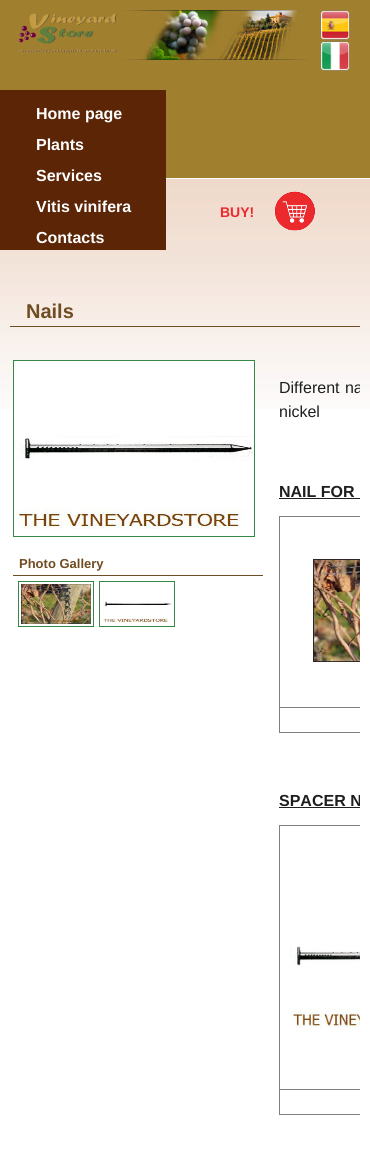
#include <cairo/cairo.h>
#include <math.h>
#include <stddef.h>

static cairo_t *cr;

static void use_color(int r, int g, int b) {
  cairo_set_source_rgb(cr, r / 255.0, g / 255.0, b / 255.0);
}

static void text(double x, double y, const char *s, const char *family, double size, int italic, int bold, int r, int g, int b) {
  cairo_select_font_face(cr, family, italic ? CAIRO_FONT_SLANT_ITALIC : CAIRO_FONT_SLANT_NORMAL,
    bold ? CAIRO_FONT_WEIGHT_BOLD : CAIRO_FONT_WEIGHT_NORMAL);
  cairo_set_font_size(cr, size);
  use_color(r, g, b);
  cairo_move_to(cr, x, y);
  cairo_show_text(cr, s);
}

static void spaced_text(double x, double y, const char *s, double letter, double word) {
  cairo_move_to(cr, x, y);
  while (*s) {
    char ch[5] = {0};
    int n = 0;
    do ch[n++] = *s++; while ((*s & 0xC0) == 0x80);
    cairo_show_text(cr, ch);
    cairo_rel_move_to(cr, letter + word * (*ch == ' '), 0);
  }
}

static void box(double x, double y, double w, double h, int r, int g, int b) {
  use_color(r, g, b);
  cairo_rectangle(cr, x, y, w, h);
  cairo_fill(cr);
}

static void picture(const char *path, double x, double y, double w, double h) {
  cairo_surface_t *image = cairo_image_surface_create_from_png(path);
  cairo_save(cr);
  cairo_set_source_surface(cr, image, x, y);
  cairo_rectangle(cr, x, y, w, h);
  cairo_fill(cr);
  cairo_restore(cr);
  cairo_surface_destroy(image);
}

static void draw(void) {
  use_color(255, 255, 255);
  cairo_paint(cr);
  picture("img_01.png", 0, 0, 370, 409);
  picture("img_02.png", 18, 10, 291, 50);
  picture("img_03.png", 320, 10, 30, 30);
  picture("img_04.png", 320, 41, 30, 30);
  box(0, 90, 166, 160, 91, 37, 6);
  picture("img_05.png", 274, 191, 42, 40);
  box(10, 326, 350, 1, 111, 76, 34);
  cairo_rectangle(cr, 13.5, 360.5, 241, 176);
  use_color(55, 136, 70);
  cairo_set_line_width(cr, 1);
  cairo_stroke(cr);
  picture("img_06.png", 14, 361, 240, 168);
  box(13, 575, 250, 1, 111, 76, 34);
  cairo_rectangle(cr, 18.5, 581.5, 75, 45);
  use_color(55, 136, 70);
  cairo_stroke(cr);
  cairo_rectangle(cr, 99.5, 581.5, 75, 45);
  cairo_stroke(cr);
  picture("img_07.png", 21, 584, 70, 40);
  picture("img_08.png", 102, 601, 70, 21);
  box(279, 498, 81, 1, 30, 30, 30);
  box(279, 516, 81, 1, 128, 127, 127);
  box(279, 516, 1, 191, 128, 127, 127);
  picture("img_09.png", 313, 559, 47, 103);
  cairo_save(cr);
  cairo_rectangle(cr, 10, 290, 350, 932);
  cairo_clip(cr);
  cairo_rectangle(cr, 279.5, 707.5, 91, 25);
  cairo_stroke(cr);
  cairo_restore(cr);
  box(279, 807, 81, 1, 30, 30, 30);
  box(279, 825, 81, 1, 128, 127, 127);
  box(279, 825, 1, 264, 128, 127, 127);
  picture("img_10.png", 290, 946, 70, 82);
  cairo_save(cr);
  cairo_rectangle(cr, 10, 290, 350, 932);
  cairo_clip(cr);
  cairo_rectangle(cr, 279.5, 1089.5, 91, 25);
  cairo_stroke(cr);
  cairo_restore(cr);
  text(36, 119, "Home page", "Liberation Sans", 16, 0, 1, 255, 255, 255);
  text(36, 150, "Plants", "Liberation Sans", 16, 0, 1, 255, 255, 255);
  text(36, 181, "Services", "Liberation Sans", 16, 0, 1, 255, 255, 255);
  text(36, 212, "Vitis vinifera", "Liberation Sans", 16, 0, 1, 255, 255, 255);
  text(36, 243, "Contacts", "Liberation Sans", 16, 0, 1, 255, 255, 255);
  text(220, 217, "BUY!", "Liberation Sans", 14, 0, 1, 236, 41, 45);
  text(26, 318, "Nails", "Liberation Sans", 20, 0, 1, 111, 76, 34);
  text(19, 568, "Photo Gallery", "Liberation Sans", 13, 0, 1, 111, 76, 34);
  cairo_save(cr);
  cairo_rectangle(cr, 10, 290, 350, 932);
  cairo_clip(cr);
  cairo_select_font_face(cr, "Liberation Sans", CAIRO_FONT_SLANT_NORMAL, CAIRO_FONT_WEIGHT_NORMAL);
  cairo_set_font_size(cr, 16);
  use_color(30, 30, 30);
  spaced_text(279, 393, "Different na", 0, 1);
  cairo_restore(cr);
  text(279, 417, "nickel", "Liberation Sans", 16, 0, 0, 30, 30, 30);
  text(279, 497, "NAIL FOR", "Liberation Sans", 16, 0, 1, 30, 30, 30);
  cairo_save(cr);
  cairo_rectangle(cr, 10, 290, 350, 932);
  cairo_clip(cr);
  text(279, 806, "SPACER N", "Liberation Sans", 16, 0, 1, 30, 30, 30);
  cairo_restore(cr);
}

int main(void) {
  cairo_surface_t *surface = cairo_image_surface_create(CAIRO_FORMAT_RGB24, 370, 1164);
  cr = cairo_create(surface);
  cairo_font_options_t *options = cairo_font_options_create();
  cairo_font_options_set_hint_metrics(options, CAIRO_HINT_METRICS_OFF);
  cairo_font_options_set_hint_style(options, CAIRO_HINT_STYLE_NONE);
  cairo_set_font_options(cr, options);
  cairo_set_miter_limit(cr, 4);
  draw();
  cairo_surface_write_to_png(surface, "out.png");
  cairo_font_options_destroy(options);
  cairo_destroy(cr);
  cairo_surface_destroy(surface);
  return 0;
}
